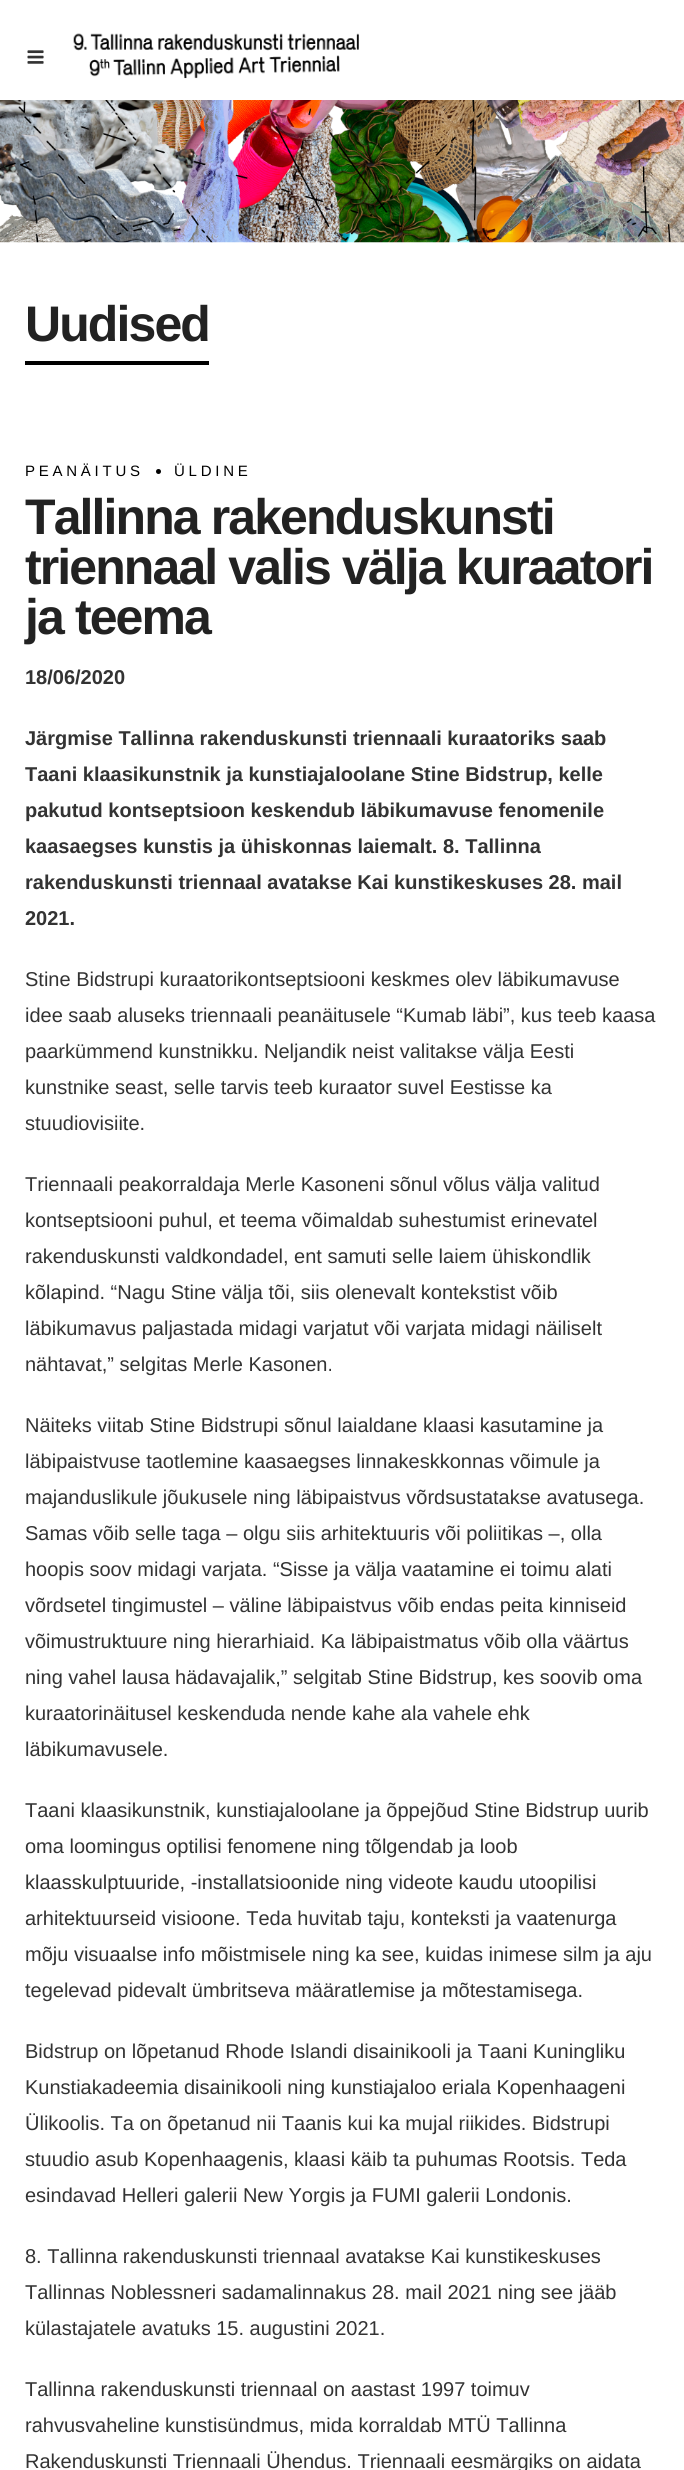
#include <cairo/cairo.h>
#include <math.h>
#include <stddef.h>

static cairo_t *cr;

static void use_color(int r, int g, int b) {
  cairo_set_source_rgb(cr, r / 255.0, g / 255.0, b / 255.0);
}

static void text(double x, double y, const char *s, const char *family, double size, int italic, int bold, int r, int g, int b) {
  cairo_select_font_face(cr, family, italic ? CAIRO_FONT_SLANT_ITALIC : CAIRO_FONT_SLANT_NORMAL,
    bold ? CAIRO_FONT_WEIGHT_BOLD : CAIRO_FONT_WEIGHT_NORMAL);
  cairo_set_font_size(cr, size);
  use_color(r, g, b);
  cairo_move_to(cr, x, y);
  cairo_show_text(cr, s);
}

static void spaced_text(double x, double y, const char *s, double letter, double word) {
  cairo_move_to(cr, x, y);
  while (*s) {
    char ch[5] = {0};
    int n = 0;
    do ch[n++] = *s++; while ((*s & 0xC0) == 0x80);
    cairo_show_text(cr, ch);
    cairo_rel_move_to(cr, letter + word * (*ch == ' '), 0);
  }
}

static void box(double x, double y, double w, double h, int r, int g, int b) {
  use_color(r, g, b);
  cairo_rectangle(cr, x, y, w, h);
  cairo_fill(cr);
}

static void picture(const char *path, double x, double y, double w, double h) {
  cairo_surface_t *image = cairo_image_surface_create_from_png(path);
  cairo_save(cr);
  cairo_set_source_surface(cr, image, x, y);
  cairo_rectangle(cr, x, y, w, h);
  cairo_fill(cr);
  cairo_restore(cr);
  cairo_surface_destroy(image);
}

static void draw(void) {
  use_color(255, 255, 255);
  cairo_paint(cr);
  picture("img_01.png", 27, 50, 17, 14);
  picture("img_02.png", 73, 33, 286, 46);
  picture("img_03.png", 0, 100, 684, 143);
  box(25, 361, 184, 4, 0, 0, 0);
  cairo_arc(cr, 158.5, 471.5, 2.5, 0, 2 * M_PI);
  cairo_fill(cr);
  cairo_select_font_face(cr, "Arimo", CAIRO_FONT_SLANT_NORMAL, CAIRO_FONT_WEIGHT_BOLD);
  cairo_set_font_size(cr, 50);
  use_color(34, 34, 34);
  spaced_text(25, 341, "Uudised", -1.9, 0);
  cairo_select_font_face(cr, "Arimo", CAIRO_FONT_SLANT_NORMAL, CAIRO_FONT_WEIGHT_NORMAL);
  cairo_set_font_size(cr, 15);
  use_color(0, 0, 0);
  spaced_text(25, 476, "PEANÄITUS", 3.75, 0);
  spaced_text(174, 476, "ÜLDINE", 3.75, 0);
  cairo_select_font_face(cr, "Arimo", CAIRO_FONT_SLANT_NORMAL, CAIRO_FONT_WEIGHT_BOLD);
  cairo_set_font_size(cr, 50);
  use_color(34, 34, 34);
  spaced_text(25, 534, "Tallinna rakenduskunsti", -1.9, 0);
  spaced_text(25, 584, "triennaal valis välja kuraatori", -1.9, 0);
  spaced_text(25, 634, "ja teema", -1.9, 0);
  text(25, 684, "18/06/2020", "Arimo", 20, 0, 1, 51, 51, 51);
  text(25, 745, "Järgmise Tallinna rakenduskunsti triennaali kuraatoriks saab", "Arimo", 20, 0, 1, 51, 51, 51);
  text(25, 781, "Taani klaasikunstnik ja kunstiajaloolane Stine Bidstrup, kelle", "Arimo", 20, 0, 1, 51, 51, 51);
  text(25, 817, "pakutud kontseptsioon keskendub läbikumavuse fenomenile", "Arimo", 20, 0, 1, 51, 51, 51);
  text(25, 853, "kaasaegses kunstis ja ühiskonnas laiemalt. 8. Tallinna", "Arimo", 20, 0, 1, 51, 51, 51);
  text(25, 889, "rakenduskunsti triennaal avatakse Kai kunstikeskuses 28. mail", "Arimo", 20, 0, 1, 51, 51, 51);
  text(25, 925, "2021.", "Arimo", 20, 0, 1, 51, 51, 51);
  text(25, 986, "Stine Bidstrupi kuraatorikontseptsiooni keskmes olev läbikumavuse", "Arimo", 20, 0, 0, 51, 51, 51);
  text(25, 1022, "idee saab aluseks triennaali peanäitusele “Kumab läbi”, kus teeb kaasa", "Arimo", 20, 0, 0, 51, 51, 51);
  text(25, 1058, "paarkümmend kunstnikku. Neljandik neist valitakse välja Eesti", "Arimo", 20, 0, 0, 51, 51, 51);
  text(25, 1094, "kunstnike seast, selle tarvis teeb kuraator suvel Eestisse ka", "Arimo", 20, 0, 0, 51, 51, 51);
  text(25, 1130, "stuudiovisiite.", "Arimo", 20, 0, 0, 51, 51, 51);
  text(25, 1191, "Triennaali peakorraldaja Merle Kasoneni sõnul võlus välja valitud", "Arimo", 20, 0, 0, 51, 51, 51);
  text(25, 1227, "kontseptsiooni puhul, et teema võimaldab suhestumist erinevatel", "Arimo", 20, 0, 0, 51, 51, 51);
  text(25, 1263, "rakenduskunsti valdkondadel, ent samuti selle laiem ühiskondlik", "Arimo", 20, 0, 0, 51, 51, 51);
  text(25, 1299, "kõlapind. “Nagu Stine välja tõi, siis olenevalt kontekstist võib", "Arimo", 20, 0, 0, 51, 51, 51);
  text(25, 1335, "läbikumavus paljastada midagi varjatut või varjata midagi näiliselt", "Arimo", 20, 0, 0, 51, 51, 51);
  text(25, 1371, "nähtavat,” selgitas Merle Kasonen.", "Arimo", 20, 0, 0, 51, 51, 51);
  text(25, 1432, "Näiteks viitab Stine Bidstrupi sõnul laialdane klaasi kasutamine ja", "Arimo", 20, 0, 0, 51, 51, 51);
  text(25, 1468, "läbipaistvuse taotlemine kaasaegses linnakeskkonnas võimule ja", "Arimo", 20, 0, 0, 51, 51, 51);
  text(25, 1504, "majanduslikule jõukusele ning läbipaistvus võrdsustatakse avatusega.", "Arimo", 20, 0, 0, 51, 51, 51);
  text(25, 1540, "Samas võib selle taga – olgu siis arhitektuuris või poliitikas –, olla", "Arimo", 20, 0, 0, 51, 51, 51);
  text(25, 1576, "hoopis soov midagi varjata. “Sisse ja välja vaatamine ei toimu alati", "Arimo", 20, 0, 0, 51, 51, 51);
  text(25, 1612, "võrdsetel tingimustel – väline läbipaistvus võib endas peita kinniseid", "Arimo", 20, 0, 0, 51, 51, 51);
  text(25, 1648, "võimustruktuure ning hierarhiaid. Ka läbipaistmatus võib olla väärtus", "Arimo", 20, 0, 0, 51, 51, 51);
  text(25, 1684, "ning vahel lausa hädavajalik,” selgitab Stine Bidstrup, kes soovib oma", "Arimo", 20, 0, 0, 51, 51, 51);
  text(25, 1720, "kuraatorinäitusel keskenduda nende kahe ala vahele ehk", "Arimo", 20, 0, 0, 51, 51, 51);
  text(25, 1756, "läbikumavusele.", "Arimo", 20, 0, 0, 51, 51, 51);
  text(25, 1817, "Taani klaasikunstnik, kunstiajaloolane ja õppejõud Stine Bidstrup uurib", "Arimo", 20, 0, 0, 51, 51, 51);
  text(25, 1853, "oma loomingus optilisi fenomene ning tõlgendab ja loob", "Arimo", 20, 0, 0, 51, 51, 51);
  text(25, 1889, "klaasskulptuuride, -installatsioonide ning videote kaudu utoopilisi", "Arimo", 20, 0, 0, 51, 51, 51);
  text(25, 1925, "arhitektuurseid visioone. Teda huvitab taju, konteksti ja vaatenurga", "Arimo", 20, 0, 0, 51, 51, 51);
  text(25, 1961, "mõju visuaalse info mõistmisele ning ka see, kuidas inimese silm ja aju", "Arimo", 20, 0, 0, 51, 51, 51);
  text(25, 1997, "tegelevad pidevalt ümbritseva määratlemise ja mõtestamisega.", "Arimo", 20, 0, 0, 51, 51, 51);
  text(25, 2058, "Bidstrup on lõpetanud Rhode Islandi disainikooli ja Taani Kuningliku", "Arimo", 20, 0, 0, 51, 51, 51);
  text(25, 2094, "Kunstiakadeemia disainikooli ning kunstiajaloo eriala Kopenhaageni", "Arimo", 20, 0, 0, 51, 51, 51);
  text(25, 2130, "Ülikoolis. Ta on õpetanud nii Taanis kui ka mujal riikides. Bidstrupi", "Arimo", 20, 0, 0, 51, 51, 51);
  text(25, 2166, "stuudio asub Kopenhaagenis, klaasi käib ta puhumas Rootsis. Teda", "Arimo", 20, 0, 0, 51, 51, 51);
  text(25, 2202, "esindavad Helleri galerii New Yorgis ja FUMI galerii Londonis.", "Arimo", 20, 0, 0, 51, 51, 51);
  text(25, 2263, "8. Tallinna rakenduskunsti triennaal avatakse Kai kunstikeskuses", "Arimo", 20, 0, 0, 51, 51, 51);
  text(25, 2299, "Tallinnas Noblessneri sadamalinnakus 28. mail 2021 ning see jääb", "Arimo", 20, 0, 0, 51, 51, 51);
  text(25, 2335, "külastajatele avatuks 15. augustini 2021.", "Arimo", 20, 0, 0, 51, 51, 51);
  text(25, 2396, "Tallinna rakenduskunsti triennaal on aastast 1997 toimuv", "Arimo", 20, 0, 0, 51, 51, 51);
  text(25, 2432, "rahvusvaheline kunstisündmus, mida korraldab MTÜ Tallinna", "Arimo", 20, 0, 0, 51, 51, 51);
  text(25, 2468, "Rakenduskunsti Triennaali Ühendus. Triennaali eesmärgiks on aidata", "Arimo", 20, 0, 0, 51, 51, 51);
}

int main(void) {
  cairo_surface_t *surface = cairo_image_surface_create(CAIRO_FORMAT_RGB24, 684, 2470);
  cr = cairo_create(surface);
  cairo_font_options_t *options = cairo_font_options_create();
  cairo_font_options_set_hint_metrics(options, CAIRO_HINT_METRICS_OFF);
  cairo_font_options_set_hint_style(options, CAIRO_HINT_STYLE_NONE);
  cairo_set_font_options(cr, options);
  cairo_set_miter_limit(cr, 4);
  draw();
  cairo_surface_write_to_png(surface, "out.png");
  cairo_font_options_destroy(options);
  cairo_destroy(cr);
  cairo_surface_destroy(surface);
  return 0;
}
